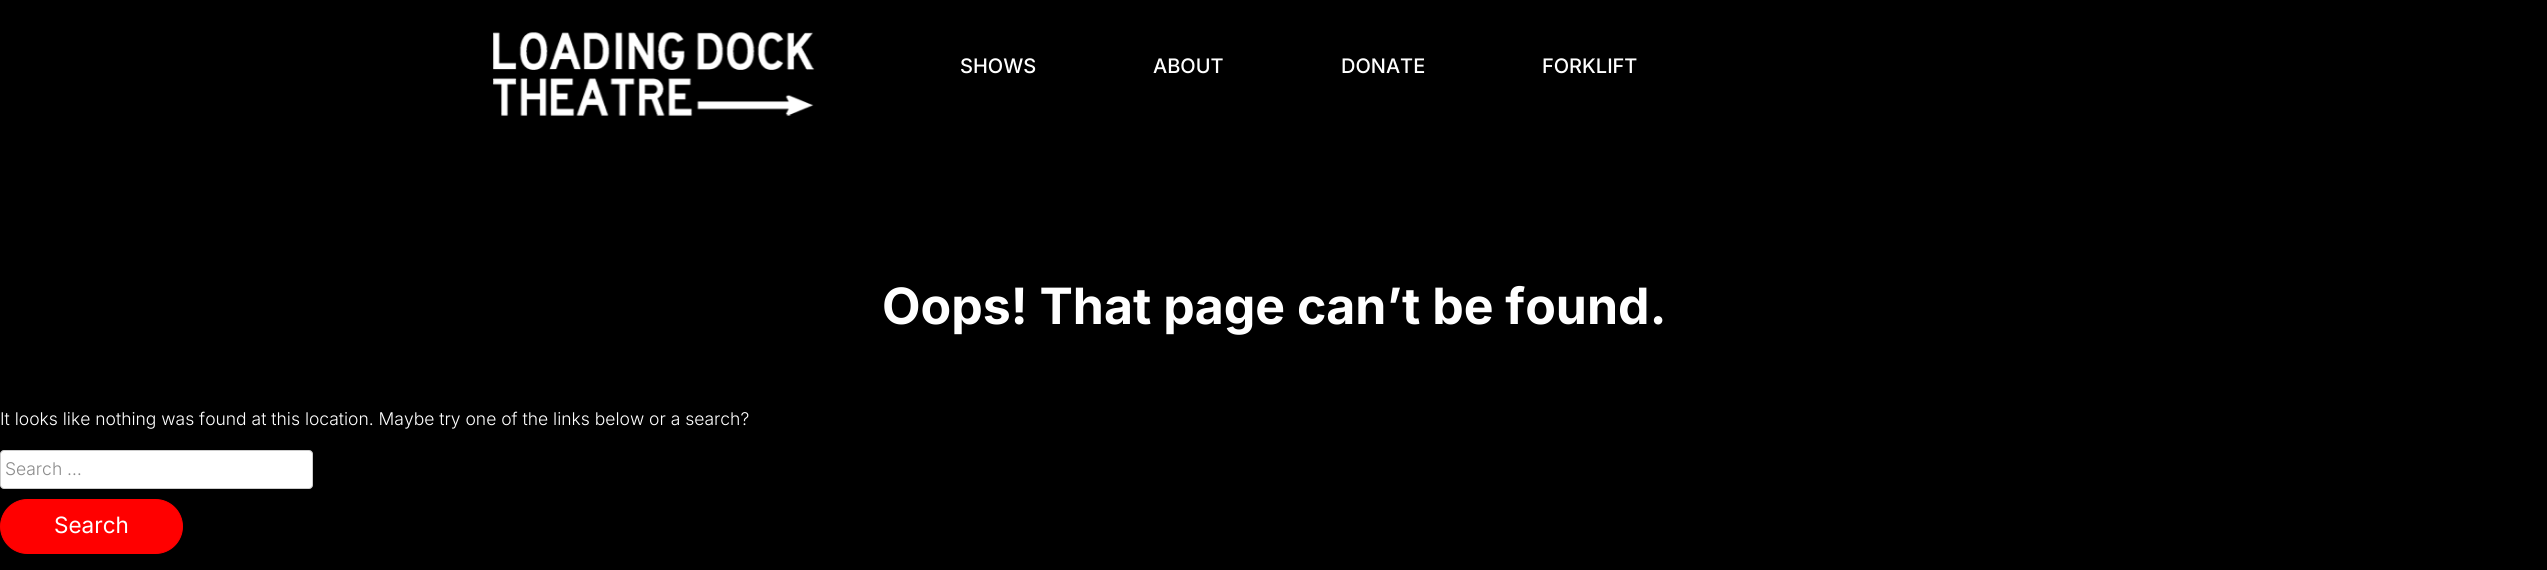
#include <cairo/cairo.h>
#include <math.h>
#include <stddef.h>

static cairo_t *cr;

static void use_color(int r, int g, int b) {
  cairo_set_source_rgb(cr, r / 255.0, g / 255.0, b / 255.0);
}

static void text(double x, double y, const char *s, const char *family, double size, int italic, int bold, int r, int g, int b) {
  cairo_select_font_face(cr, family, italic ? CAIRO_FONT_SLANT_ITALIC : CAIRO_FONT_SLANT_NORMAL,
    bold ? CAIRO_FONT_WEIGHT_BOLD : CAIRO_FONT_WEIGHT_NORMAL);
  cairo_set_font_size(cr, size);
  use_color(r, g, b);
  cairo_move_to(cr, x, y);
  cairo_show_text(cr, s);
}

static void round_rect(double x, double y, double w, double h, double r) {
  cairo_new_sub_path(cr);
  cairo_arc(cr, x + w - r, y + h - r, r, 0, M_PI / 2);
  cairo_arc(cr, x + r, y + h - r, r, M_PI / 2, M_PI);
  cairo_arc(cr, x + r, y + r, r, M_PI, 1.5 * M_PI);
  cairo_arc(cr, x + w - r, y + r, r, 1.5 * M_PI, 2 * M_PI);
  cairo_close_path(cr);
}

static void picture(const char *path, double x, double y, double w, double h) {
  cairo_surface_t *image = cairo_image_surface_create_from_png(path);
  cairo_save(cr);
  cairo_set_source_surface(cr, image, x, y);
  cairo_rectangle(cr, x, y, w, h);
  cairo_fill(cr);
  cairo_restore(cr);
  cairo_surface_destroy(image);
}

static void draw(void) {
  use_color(0, 0, 0);
  cairo_paint(cr);
  picture("img_01.png", 493, 32, 322, 84);
  use_color(255, 255, 255);
  round_rect(0.5, 450.5, 312, 38, 3.5);
  cairo_fill_preserve(cr);
  use_color(204, 204, 204);
  cairo_set_line_width(cr, 1);
  cairo_stroke(cr);
  use_color(255, 0, 0);
  round_rect(0.5, 499.5, 182, 54, 27);
  cairo_fill_preserve(cr);
  cairo_stroke(cr);
  text(960, 73, "SHOWS", "Inter Medium", 20, 0, 0, 255, 255, 255);
  text(1153, 73, "ABOUT", "Inter Medium", 20, 0, 0, 255, 255, 255);
  text(1341, 73, "DONATE", "Inter Medium", 20, 0, 0, 255, 255, 255);
  text(1542, 73, "FORKLIFT", "Inter Medium", 20, 0, 0, 255, 255, 255);
  text(882, 324, "Oops! That page can’t be found.", "Inter", 50, 0, 1, 255, 255, 255);
  text(0, 425, "It looks like nothing was found at this location. Maybe try one of the links below or a search?", "Inter Light", 17.5, 0, 0, 255, 255, 255);
  text(5, 475, "Search …", "Inter Light", 17.5, 0, 0, 139, 139, 139);
  text(54, 533, "Search", "Inter", 22.5, 0, 0, 255, 255, 255);
}

int main(void) {
  cairo_surface_t *surface = cairo_image_surface_create(CAIRO_FORMAT_RGB24, 2547, 570);
  cr = cairo_create(surface);
  cairo_font_options_t *options = cairo_font_options_create();
  cairo_font_options_set_hint_metrics(options, CAIRO_HINT_METRICS_OFF);
  cairo_font_options_set_hint_style(options, CAIRO_HINT_STYLE_NONE);
  cairo_set_font_options(cr, options);
  cairo_set_miter_limit(cr, 4);
  draw();
  cairo_surface_write_to_png(surface, "out.png");
  cairo_font_options_destroy(options);
  cairo_destroy(cr);
  cairo_surface_destroy(surface);
  return 0;
}
